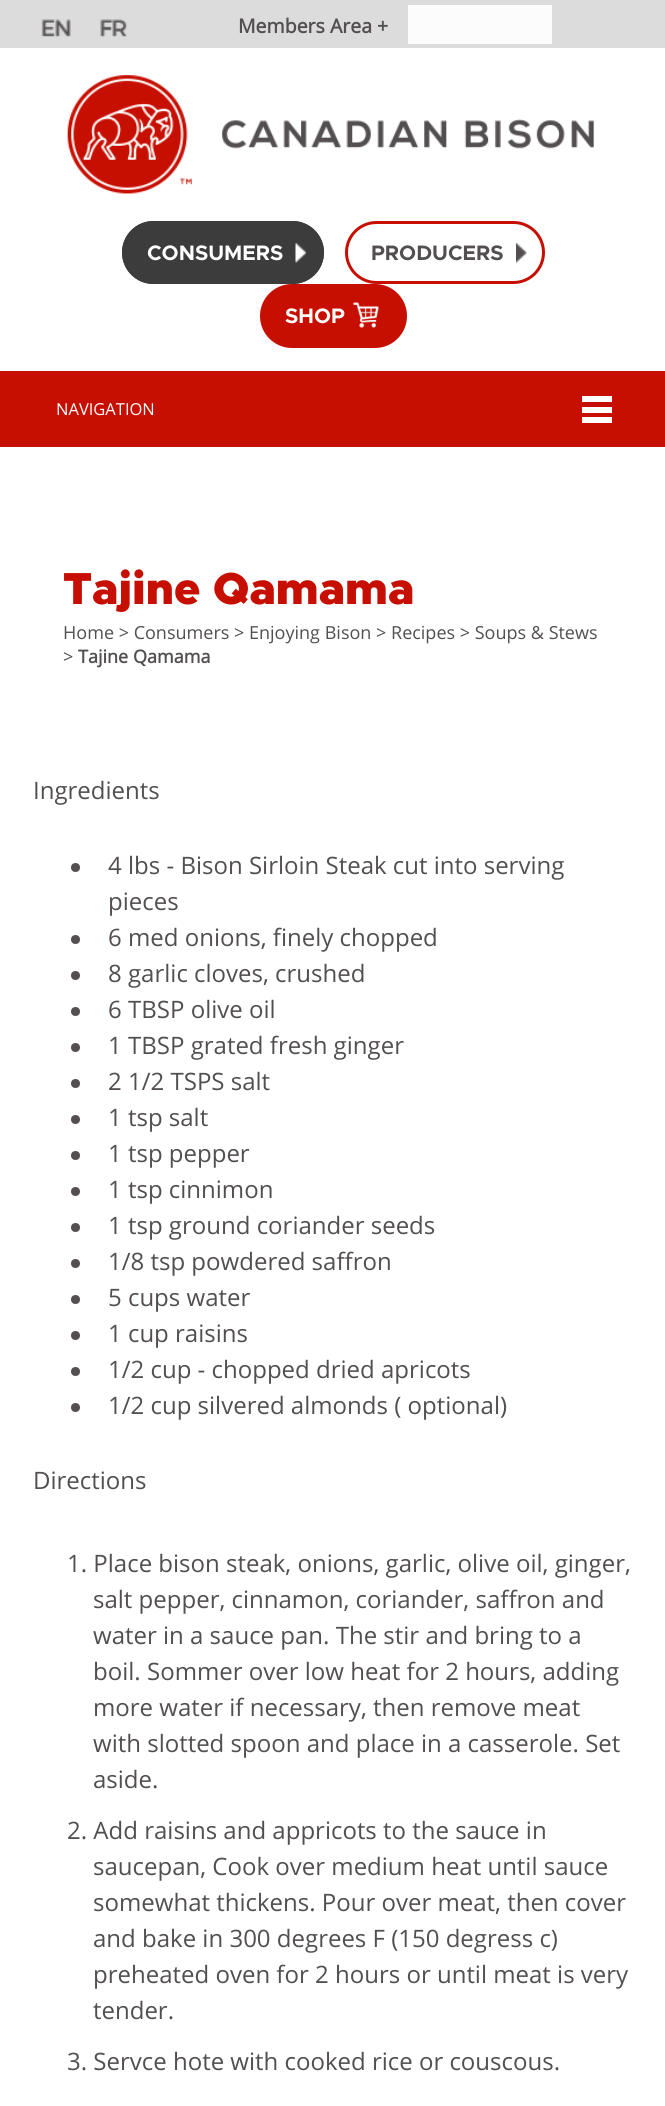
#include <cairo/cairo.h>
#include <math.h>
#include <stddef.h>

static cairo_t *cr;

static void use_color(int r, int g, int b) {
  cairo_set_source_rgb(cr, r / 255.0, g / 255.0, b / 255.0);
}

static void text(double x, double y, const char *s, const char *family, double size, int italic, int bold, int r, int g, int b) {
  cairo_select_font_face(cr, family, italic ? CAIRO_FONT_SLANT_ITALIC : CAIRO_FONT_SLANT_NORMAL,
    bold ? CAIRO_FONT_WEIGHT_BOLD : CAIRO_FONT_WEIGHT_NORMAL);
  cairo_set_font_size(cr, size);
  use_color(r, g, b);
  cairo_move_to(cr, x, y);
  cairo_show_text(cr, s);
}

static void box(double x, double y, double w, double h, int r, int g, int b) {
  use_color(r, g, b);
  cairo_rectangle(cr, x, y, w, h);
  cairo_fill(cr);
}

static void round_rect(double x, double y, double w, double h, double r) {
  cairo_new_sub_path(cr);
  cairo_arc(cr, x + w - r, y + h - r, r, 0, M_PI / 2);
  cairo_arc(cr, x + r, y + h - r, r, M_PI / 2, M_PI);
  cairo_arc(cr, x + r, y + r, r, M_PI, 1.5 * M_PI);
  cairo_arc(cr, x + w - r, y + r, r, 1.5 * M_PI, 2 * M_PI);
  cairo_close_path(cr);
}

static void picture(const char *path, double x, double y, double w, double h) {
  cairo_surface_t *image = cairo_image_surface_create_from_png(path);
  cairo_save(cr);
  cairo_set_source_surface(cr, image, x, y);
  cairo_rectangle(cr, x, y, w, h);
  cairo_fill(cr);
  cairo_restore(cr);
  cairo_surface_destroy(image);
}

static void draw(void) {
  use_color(255, 255, 255);
  cairo_paint(cr);
  box(0, 0, 665, 48, 220, 220, 220);
  picture("img_01.png", 41, 19, 30, 18);
  picture("img_02.png", 100, 19, 27, 18);
  box(408, 5, 144, 39, 252, 252, 252);
  picture("img_03.png", 67, 75, 527, 119);
  use_color(60, 60, 60);
  round_rect(122, 221, 202, 63, 31.5);
  cairo_fill(cr);
  picture("img_04.png", 295, 243, 11, 20);
  round_rect(123.5, 222.5, 199, 60, 30);
  cairo_set_line_width(cr, 3);
  cairo_stroke(cr);
  picture("img_05.png", 516, 243, 11, 20);
  round_rect(346.5, 222.5, 197, 60, 30);
  use_color(199, 15, 1);
  cairo_stroke(cr);
  round_rect(261.5, 285.5, 144, 61, 30.5);
  cairo_fill_preserve(cr);
  cairo_stroke(cr);
  picture("img_06.png", 352, 302, 27, 26);
  box(0, 371, 665, 76, 199, 15, 1);
  box(582, 396, 30, 6, 255, 255, 255);
  box(582, 407, 30, 6, 255, 255, 255);
  box(582, 417, 30, 6, 255, 255, 255);
  use_color(83, 79, 80);
  cairo_arc(cr, 75.5, 867.5, 4.5, 0, 2 * M_PI);
  cairo_fill(cr);
  cairo_arc(cr, 75.5, 939.5, 4.5, 0, 2 * M_PI);
  cairo_fill(cr);
  cairo_arc(cr, 75.5, 975.5, 4.5, 0, 2 * M_PI);
  cairo_fill(cr);
  cairo_arc(cr, 75.5, 1011.5, 4.5, 0, 2 * M_PI);
  cairo_fill(cr);
  cairo_arc(cr, 75.5, 1047.5, 4.5, 0, 2 * M_PI);
  cairo_fill(cr);
  cairo_arc(cr, 75.5, 1083.5, 4.5, 0, 2 * M_PI);
  cairo_fill(cr);
  cairo_arc(cr, 75.5, 1119.5, 4.5, 0, 2 * M_PI);
  cairo_fill(cr);
  cairo_arc(cr, 75.5, 1155.5, 4.5, 0, 2 * M_PI);
  cairo_fill(cr);
  cairo_arc(cr, 75.5, 1191.5, 4.5, 0, 2 * M_PI);
  cairo_fill(cr);
  cairo_arc(cr, 75.5, 1227.5, 4.5, 0, 2 * M_PI);
  cairo_fill(cr);
  cairo_arc(cr, 75.5, 1263.5, 4.5, 0, 2 * M_PI);
  cairo_fill(cr);
  cairo_arc(cr, 75.5, 1299.5, 4.5, 0, 2 * M_PI);
  cairo_fill(cr);
  cairo_arc(cr, 75.5, 1335.5, 4.5, 0, 2 * M_PI);
  cairo_fill(cr);
  cairo_arc(cr, 75.5, 1371.5, 4.5, 0, 2 * M_PI);
  cairo_fill(cr);
  cairo_arc(cr, 75.5, 1407.5, 4.5, 0, 2 * M_PI);
  cairo_fill(cr);
  text(238, 33, "Members Area +", "Open Sans", 19.5, 0, 1, 83, 79, 80);
  text(147, 260, "CONSUMERS", "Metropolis", 21, 0, 1, 255, 255, 255);
  text(371, 260, "PRODUCERS", "Metropolis", 21, 0, 1, 83, 79, 80);
  text(285, 323, "SHOP", "Metropolis", 21, 0, 1, 255, 255, 255);
  text(56, 415, "NAVIGATION", "Open Sans", 16.5, 0, 0, 255, 255, 255);
  text(63, 604, "Tajine Qamama", "Metropolis Black", 45, 0, 0, 199, 15, 1);
  text(63, 639, "Home > Consumers > Enjoying Bison > Recipes > Soups & Stews", "Open Sans", 18, 0, 0, 83, 79, 80);
  text(63, 663, ">", "Open Sans", 18, 0, 0, 83, 79, 80);
  text(78, 663, "Tajine Qamama", "Open Sans", 18, 0, 1, 83, 79, 80);
  text(33, 799, "Ingredients", "Open Sans", 24, 0, 0, 83, 79, 80);
  text(108, 874, "4 lbs - Bison Sirloin Steak cut into serving", "Open Sans", 24, 0, 0, 83, 79, 80);
  text(108, 910, "pieces", "Open Sans", 24, 0, 0, 83, 79, 80);
  text(108, 946, "6 med onions, finely chopped", "Open Sans", 24, 0, 0, 83, 79, 80);
  text(108, 982, "8 garlic cloves, crushed", "Open Sans", 24, 0, 0, 83, 79, 80);
  text(108, 1018, "6 TBSP olive oil", "Open Sans", 24, 0, 0, 83, 79, 80);
  text(108, 1054, "1 TBSP grated fresh ginger", "Open Sans", 24, 0, 0, 83, 79, 80);
  text(108, 1090, "2 1/2 TSPS salt", "Open Sans", 24, 0, 0, 83, 79, 80);
  text(108, 1126, "1 tsp salt", "Open Sans", 24, 0, 0, 83, 79, 80);
  text(108, 1162, "1 tsp pepper", "Open Sans", 24, 0, 0, 83, 79, 80);
  text(108, 1198, "1 tsp cinnimon", "Open Sans", 24, 0, 0, 83, 79, 80);
  text(108, 1234, "1 tsp ground coriander seeds", "Open Sans", 24, 0, 0, 83, 79, 80);
  text(108, 1270, "1/8 tsp powdered saffron", "Open Sans", 24, 0, 0, 83, 79, 80);
  text(108, 1306, "5 cups water", "Open Sans", 24, 0, 0, 83, 79, 80);
  text(108, 1342, "1 cup raisins", "Open Sans", 24, 0, 0, 83, 79, 80);
  text(108, 1378, "1/2 cup - chopped dried apricots", "Open Sans", 24, 0, 0, 83, 79, 80);
  text(108, 1414, "1/2 cup silvered almonds ( optional)", "Open Sans", 24, 0, 0, 83, 79, 80);
  text(33, 1489, "Directions", "Open Sans", 24, 0, 0, 83, 79, 80);
  text(67, 1572, "1. Place bison steak, onions, garlic, olive oil, ginger,", "Open Sans", 24, 0, 0, 83, 79, 80);
  text(93, 1608, "salt pepper, cinnamon, coriander, saffron and", "Open Sans", 24, 0, 0, 83, 79, 80);
  text(93, 1644, "water in a sauce pan. The stir and bring to a", "Open Sans", 24, 0, 0, 83, 79, 80);
  text(93, 1680, "boil. Sommer over low heat for 2 hours, adding", "Open Sans", 24, 0, 0, 83, 79, 80);
  text(93, 1716, "more water if necessary, then remove meat", "Open Sans", 24, 0, 0, 83, 79, 80);
  text(93, 1752, "with slotted spoon and place in a casserole. Set", "Open Sans", 24, 0, 0, 83, 79, 80);
  text(93, 1788, "aside.", "Open Sans", 24, 0, 0, 83, 79, 80);
  text(67, 1839, "2. Add raisins and appricots to the sauce in", "Open Sans", 24, 0, 0, 83, 79, 80);
  text(93, 1875, "saucepan, Cook over medium heat until sauce", "Open Sans", 24, 0, 0, 83, 79, 80);
  text(93, 1911, "somewhat thickens. Pour over meat, then cover", "Open Sans", 24, 0, 0, 83, 79, 80);
  text(93, 1947, "and bake in 300 degrees F (150 degress c)", "Open Sans", 24, 0, 0, 83, 79, 80);
  text(93, 1983, "preheated oven for 2 hours or until meat is very", "Open Sans", 24, 0, 0, 83, 79, 80);
  text(93, 2019, "tender.", "Open Sans", 24, 0, 0, 83, 79, 80);
  text(67, 2070, "3. Servce hote with cooked rice or couscous.", "Open Sans", 24, 0, 0, 83, 79, 80);
}

int main(void) {
  cairo_surface_t *surface = cairo_image_surface_create(CAIRO_FORMAT_RGB24, 665, 2106);
  cr = cairo_create(surface);
  cairo_font_options_t *options = cairo_font_options_create();
  cairo_font_options_set_hint_metrics(options, CAIRO_HINT_METRICS_OFF);
  cairo_font_options_set_hint_style(options, CAIRO_HINT_STYLE_NONE);
  cairo_set_font_options(cr, options);
  cairo_set_miter_limit(cr, 4);
  draw();
  cairo_surface_write_to_png(surface, "out.png");
  cairo_font_options_destroy(options);
  cairo_destroy(cr);
  cairo_surface_destroy(surface);
  return 0;
}
